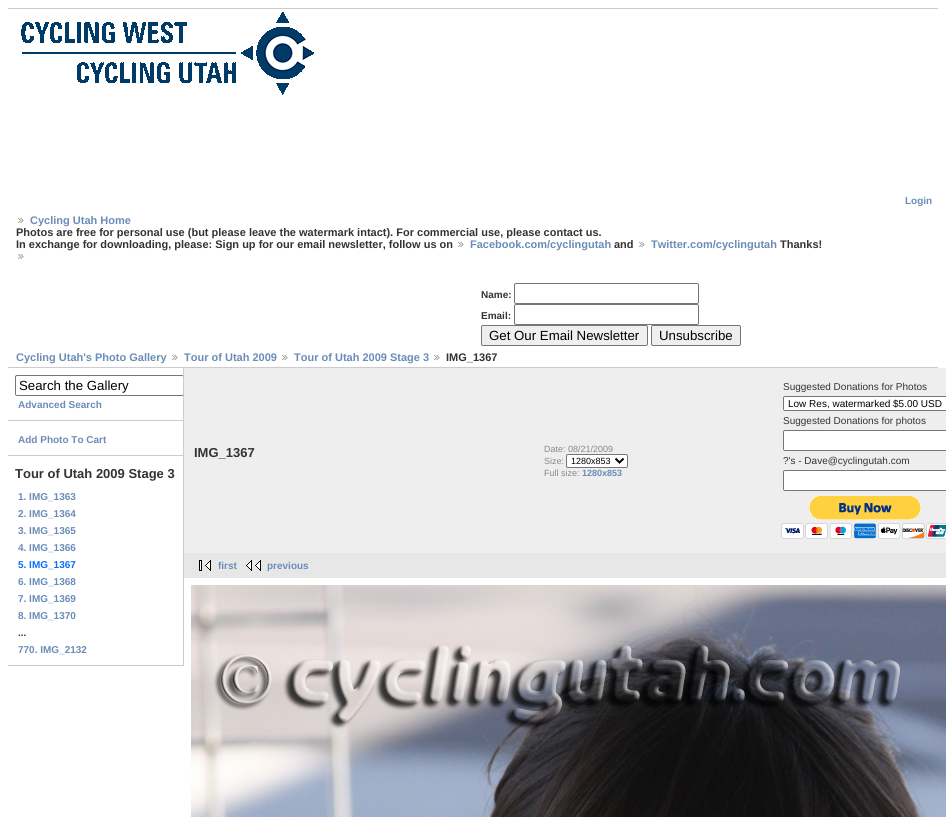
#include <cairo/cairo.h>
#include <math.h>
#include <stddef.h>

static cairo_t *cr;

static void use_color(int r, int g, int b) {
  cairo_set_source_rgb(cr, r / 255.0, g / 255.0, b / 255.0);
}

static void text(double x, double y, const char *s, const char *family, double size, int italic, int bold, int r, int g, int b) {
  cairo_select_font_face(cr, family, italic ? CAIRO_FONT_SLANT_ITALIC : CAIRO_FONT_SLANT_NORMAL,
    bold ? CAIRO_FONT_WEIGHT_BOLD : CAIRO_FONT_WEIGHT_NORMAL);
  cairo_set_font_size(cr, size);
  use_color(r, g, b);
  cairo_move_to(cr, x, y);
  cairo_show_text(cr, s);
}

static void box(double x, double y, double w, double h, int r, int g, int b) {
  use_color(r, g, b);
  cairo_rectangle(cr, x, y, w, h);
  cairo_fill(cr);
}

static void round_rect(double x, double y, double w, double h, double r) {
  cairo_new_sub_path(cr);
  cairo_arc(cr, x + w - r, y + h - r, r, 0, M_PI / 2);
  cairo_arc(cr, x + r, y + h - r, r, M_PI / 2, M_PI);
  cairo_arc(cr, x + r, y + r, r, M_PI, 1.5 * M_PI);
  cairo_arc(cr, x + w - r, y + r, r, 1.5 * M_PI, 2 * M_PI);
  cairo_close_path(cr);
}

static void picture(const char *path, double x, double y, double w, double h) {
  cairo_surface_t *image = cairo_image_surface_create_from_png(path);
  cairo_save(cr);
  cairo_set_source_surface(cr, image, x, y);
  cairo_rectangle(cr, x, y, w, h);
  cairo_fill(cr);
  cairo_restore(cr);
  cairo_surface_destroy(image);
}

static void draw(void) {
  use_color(255, 255, 255);
  cairo_paint(cr);
  picture("img_01.png", 21, 12, 293, 83);
  box(8, 8, 930, 1, 204, 204, 204);
  box(8, 367, 930, 1, 204, 204, 204);
  picture("img_02.png", 18, 218, 6, 5);
  picture("img_02.png", 458, 242, 6, 5);
  picture("img_02.png", 639, 242, 6, 5);
  picture("img_02.png", 18, 254, 6, 5);
  round_rect(514.5, 283.5, 184, 20, 1.5);
  use_color(118, 118, 118);
  cairo_set_line_width(cr, 1);
  cairo_stroke(cr);
  round_rect(514.5, 304.5, 184, 20, 1.5);
  cairo_stroke(cr);
  use_color(239, 239, 239);
  round_rect(481.5, 325.5, 166, 20, 1.5);
  cairo_fill_preserve(cr);
  use_color(118, 118, 118);
  cairo_stroke(cr);
  use_color(239, 239, 239);
  round_rect(651.5, 325.5, 89, 20, 1.5);
  cairo_fill_preserve(cr);
  use_color(118, 118, 118);
  cairo_stroke(cr);
  picture("img_02.png", 172, 355, 6, 5);
  picture("img_02.png", 282, 355, 6, 5);
  picture("img_02.png", 434, 355, 6, 5);
  box(183, 368, 1, 298, 204, 204, 204);
  box(8, 420, 175, 1, 204, 204, 204);
  cairo_save(cr);
  cairo_rectangle(cr, 8, 368, 175, 298);
  cairo_clip(cr);
  round_rect(15.5, 375.5, 168, 20, 1.5);
  use_color(118, 118, 118);
  cairo_stroke(cr);
  cairo_restore(cr);
  box(8, 455, 175, 1, 204, 204, 204);
  box(8, 665, 175, 1, 204, 204, 204);
  box(184, 368, 762, 185, 238, 238, 238);
  use_color(255, 255, 255);
  round_rect(566.5, 454.5, 61, 13, 1.5);
  cairo_fill_preserve(cr);
  use_color(118, 118, 118);
  cairo_stroke(cr);
  cairo_new_path(cr);
  cairo_move_to(cr, 615.5, 458.5);
  cairo_line_to(cr, 619.5, 462.5);
  cairo_line_to(cr, 623.5, 458.5);
  use_color(0, 0, 0);
  cairo_set_line_width(cr, 2);
  cairo_stroke(cr);
  use_color(255, 255, 255);
  round_rect(783.5, 396.5, 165, 14, 1.5);
  cairo_fill_preserve(cr);
  use_color(118, 118, 118);
  cairo_set_line_width(cr, 1);
  cairo_stroke(cr);
  use_color(255, 255, 255);
  round_rect(783.5, 430.5, 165, 20, 1.5);
  cairo_fill_preserve(cr);
  use_color(118, 118, 118);
  cairo_stroke(cr);
  use_color(255, 255, 255);
  round_rect(783.5, 470.5, 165, 20, 1.5);
  cairo_fill_preserve(cr);
  use_color(118, 118, 118);
  cairo_stroke(cr);
  picture("img_03.png", 781, 496, 165, 43);
  box(184, 553, 762, 25, 231, 231, 231);
  picture("img_04.png", 199, 560, 12, 11);
  picture("img_05.png", 246, 560, 15, 11);
  picture("img_06.png", 191, 585, 755, 232);
  text(905, 204, "Login", "Liberation Sans", 10, 0, 1, 107, 140, 183);
  text(30, 224, "Cycling Utah Home", "Liberation Sans", 11, 0, 1, 107, 140, 183);
  text(16, 236, "Photos are free for personal use (but please leave the watermark intact). For commercial use, please contact us.", "Liberation Sans", 11, 0, 1, 51, 51, 51);
  text(16, 248, "In exchange for downloading, please: Sign up for our email newsletter, follow us on", "Liberation Sans", 11, 0, 1, 51, 51, 51);
  text(470, 248, "Facebook.com/cyclingutah", "Liberation Sans", 11, 0, 1, 107, 140, 183);
  text(614, 248, "and", "Liberation Sans", 11, 0, 1, 51, 51, 51);
  text(651, 248, "Twitter.com/cyclingutah", "Liberation Sans", 11, 0, 1, 107, 140, 183);
  text(780, 248, "Thanks!", "Liberation Sans", 11, 0, 1, 51, 51, 51);
  text(481, 298, "Name:", "Liberation Sans", 10, 0, 1, 51, 51, 51);
  text(481, 319, "Email:", "Liberation Sans", 10, 0, 1, 51, 51, 51);
  text(489, 340, "Get Our Email Newsletter", "Liberation Sans", 13.25, 0, 0, 0, 0, 0);
  text(659, 340, "Unsubscribe", "Liberation Sans", 13.25, 0, 0, 0, 0, 0);
  text(16, 361, "Cycling Utah's Photo Gallery", "Liberation Sans", 11, 0, 1, 107, 140, 183);
  text(184, 361, "Tour of Utah 2009", "Liberation Sans", 11, 0, 1, 107, 140, 183);
  text(294, 361, "Tour of Utah 2009 Stage 3", "Liberation Sans", 11, 0, 1, 107, 140, 183);
  text(446, 361, "IMG_1367", "Liberation Sans", 11, 0, 1, 51, 51, 51);
  text(19, 390, "Search the Gallery", "Liberation Sans", 13.25, 0, 0, 0, 0, 0);
  text(18, 408, "Advanced Search", "Liberation Sans", 10, 0, 1, 107, 140, 183);
  text(18, 443, "Add Photo To Cart", "Liberation Sans", 10, 0, 1, 107, 140, 183);
  text(15, 478, "Tour of Utah 2009 Stage 3", "Liberation Sans", 13, 0, 1, 51, 51, 51);
  text(18, 500, "1. IMG_1363", "Liberation Sans", 10, 0, 1, 107, 140, 183);
  text(18, 517, "2. IMG_1364", "Liberation Sans", 10, 0, 1, 107, 140, 183);
  text(18, 534, "3. IMG_1365", "Liberation Sans", 10, 0, 1, 107, 140, 183);
  text(18, 551, "4. IMG_1366", "Liberation Sans", 10, 0, 1, 107, 140, 183);
  text(18, 568, "5. IMG_1367", "Liberation Sans", 10, 0, 1, 11, 108, 255);
  text(18, 585, "6. IMG_1368", "Liberation Sans", 10, 0, 1, 107, 140, 183);
  text(18, 602, "7. IMG_1369", "Liberation Sans", 10, 0, 1, 107, 140, 183);
  text(18, 619, "8. IMG_1370", "Liberation Sans", 10, 0, 1, 107, 140, 183);
  text(18, 636, "...", "Liberation Sans", 10, 0, 1, 51, 51, 51);
  text(18, 653, "770. IMG_2132", "Liberation Sans", 10, 0, 1, 107, 140, 183);
  text(194, 457, "IMG_1367", "Liberation Sans", 13, 0, 1, 51, 51, 51);
  text(544, 452, "Date: 08/21/2009", "Liberation Sans", 9, 0, 0, 136, 136, 136);
  text(544, 464, "Size:", "Liberation Sans", 9, 0, 0, 136, 136, 136);
  text(571, 464, "1280x853", "Liberation Sans", 9, 0, 0, 0, 0, 0);
  text(544, 476, "Full size:", "Liberation Sans", 9, 0, 0, 136, 136, 136);
  text(582, 476, "1280x853", "Liberation Sans", 9, 0, 1, 107, 140, 183);
  text(783, 390, "Suggested Donations for Photos", "Liberation Sans", 10, 0, 0, 51, 51, 51);
  text(788, 407, "Low Res, watermarked $5.00 USD", "Liberation Sans", 10, 0, 0, 0, 0, 0);
  text(783, 424, "Suggested Donations for photos", "Liberation Sans", 10, 0, 0, 51, 51, 51);
  text(783, 464, "?'s - Dave@cyclingutah.com", "Liberation Sans", 10, 0, 0, 51, 51, 51);
  text(218, 569, "first", "Liberation Sans", 10, 0, 1, 107, 140, 183);
  text(267, 569, "previous", "Liberation Sans", 10, 0, 1, 107, 140, 183);
}

int main(void) {
  cairo_surface_t *surface = cairo_image_surface_create(CAIRO_FORMAT_RGB24, 946, 817);
  cr = cairo_create(surface);
  cairo_font_options_t *options = cairo_font_options_create();
  cairo_font_options_set_hint_metrics(options, CAIRO_HINT_METRICS_OFF);
  cairo_font_options_set_hint_style(options, CAIRO_HINT_STYLE_NONE);
  cairo_set_font_options(cr, options);
  cairo_set_miter_limit(cr, 4);
  draw();
  cairo_surface_write_to_png(surface, "out.png");
  cairo_font_options_destroy(options);
  cairo_destroy(cr);
  cairo_surface_destroy(surface);
  return 0;
}
